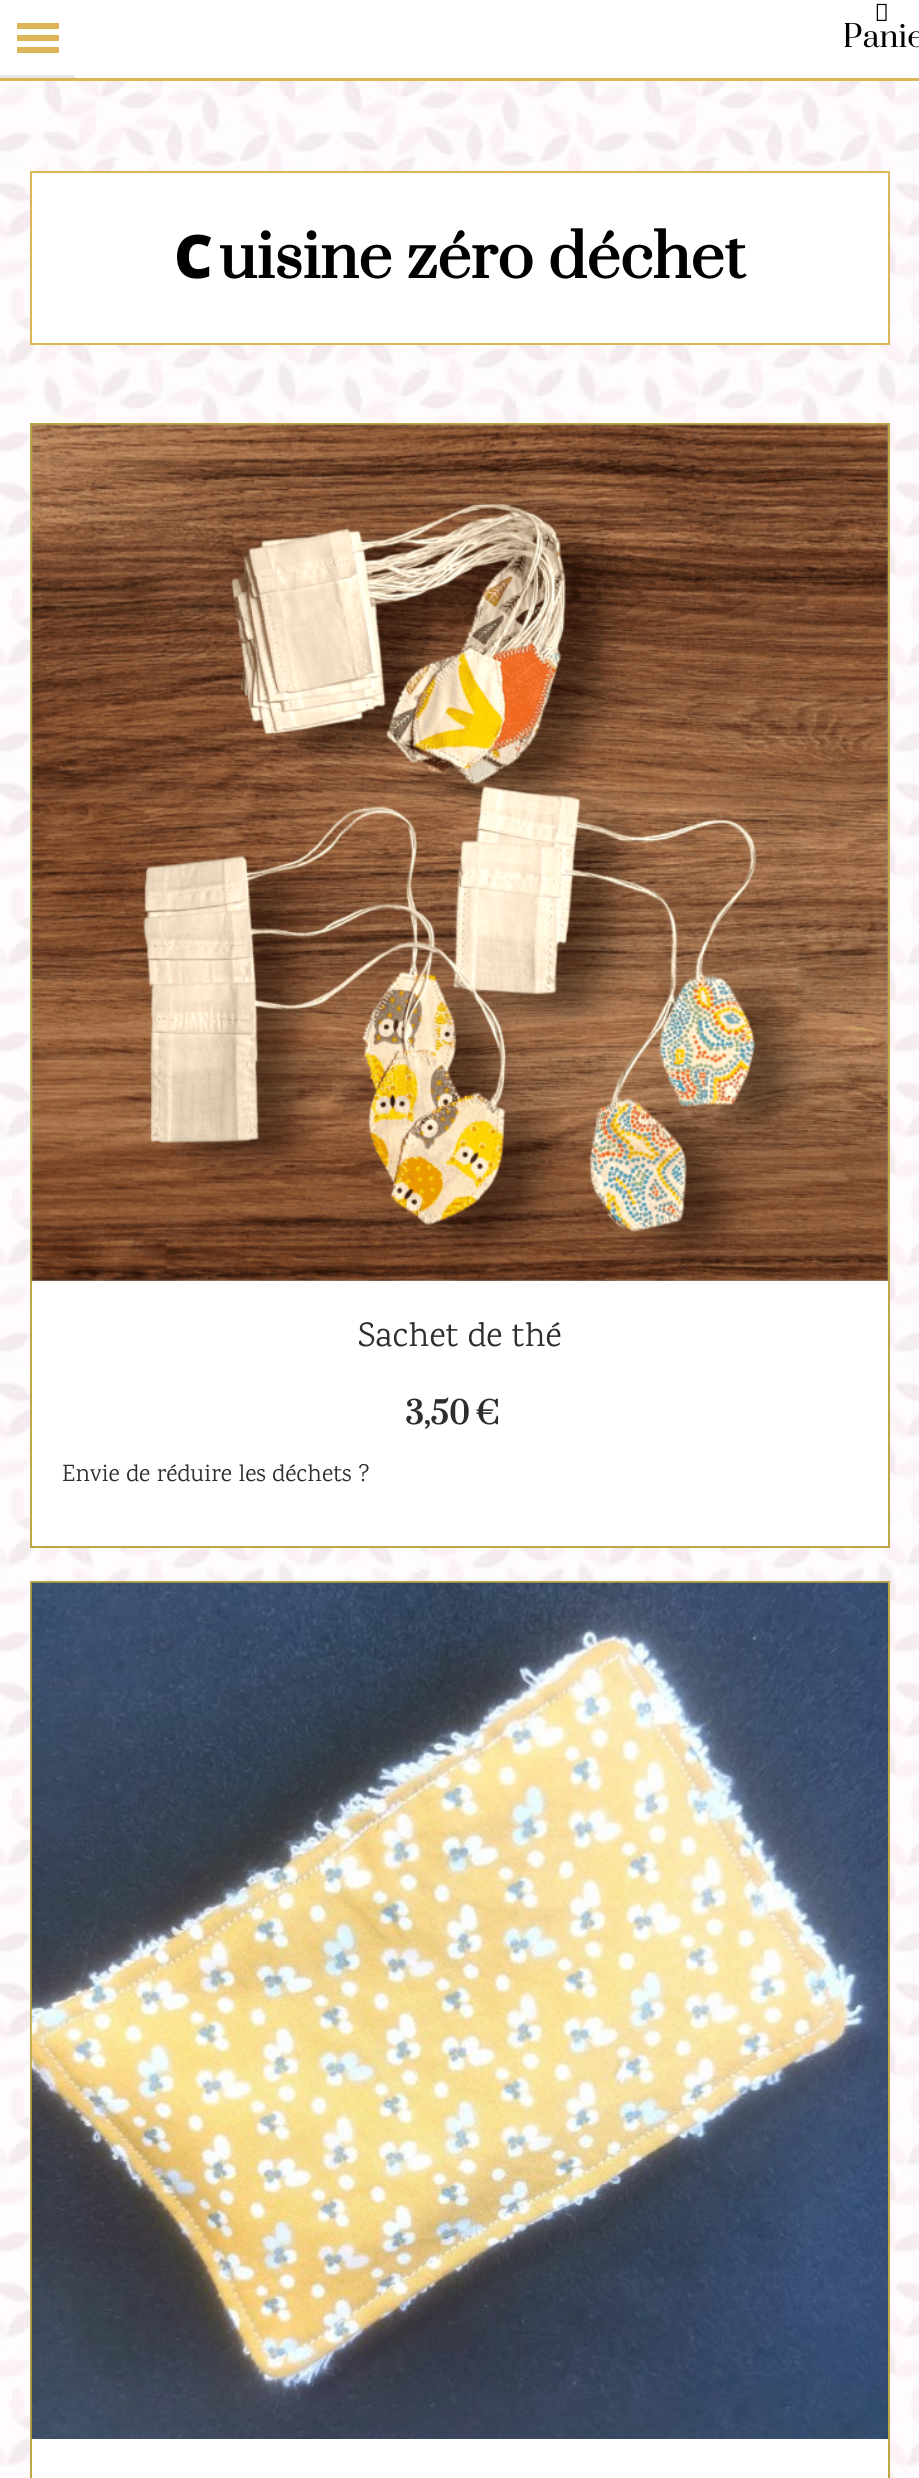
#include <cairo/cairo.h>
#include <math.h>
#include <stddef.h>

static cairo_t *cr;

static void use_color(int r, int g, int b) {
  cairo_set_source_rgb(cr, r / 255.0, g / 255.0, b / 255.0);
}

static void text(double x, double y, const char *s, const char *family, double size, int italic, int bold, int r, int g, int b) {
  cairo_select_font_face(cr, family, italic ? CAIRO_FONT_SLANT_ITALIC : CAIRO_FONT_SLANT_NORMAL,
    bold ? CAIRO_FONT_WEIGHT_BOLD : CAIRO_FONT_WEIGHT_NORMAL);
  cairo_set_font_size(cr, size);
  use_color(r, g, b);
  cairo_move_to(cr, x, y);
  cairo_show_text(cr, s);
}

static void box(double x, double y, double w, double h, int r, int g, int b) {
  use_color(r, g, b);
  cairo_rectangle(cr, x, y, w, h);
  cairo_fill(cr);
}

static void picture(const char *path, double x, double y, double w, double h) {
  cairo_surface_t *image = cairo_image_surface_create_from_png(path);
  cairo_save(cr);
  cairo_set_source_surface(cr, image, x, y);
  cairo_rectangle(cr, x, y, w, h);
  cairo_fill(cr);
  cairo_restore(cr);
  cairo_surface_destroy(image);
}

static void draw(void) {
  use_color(255, 255, 255);
  cairo_paint(cr);
  picture("img_01.png", 0, 81, 919, 2397);
  box(0, 78, 919, 3, 219, 181, 86);
  box(0, 75, 75, 3, 230, 230, 230);
  box(17, 23, 42, 6, 219, 181, 86);
  box(17, 35, 42, 6, 219, 181, 86);
  box(17, 47, 42, 6, 219, 181, 86);
  picture("img_02.png", 876, 3, 11, 18);
  use_color(255, 255, 255);
  cairo_rectangle(cr, 31, 172, 858, 172);
  cairo_fill_preserve(cr);
  use_color(219, 181, 86);
  cairo_stroke(cr);
  use_color(255, 255, 255);
  cairo_rectangle(cr, 31, 424, 858, 1123);
  cairo_fill_preserve(cr);
  use_color(189, 168, 67);
  cairo_stroke(cr);
  picture("img_03.png", 31, 424, 857, 857);
  box(32, 2439, 856, 39, 255, 255, 255);
  cairo_rectangle(cr, 31, 1582, 858, 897);
  use_color(189, 168, 67);
  cairo_stroke(cr);
  picture("img_04.png", 31, 1582, 857, 857);
  cairo_save(cr);
  cairo_rectangle(cr, 845, 0, 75, 75);
  cairo_clip(cr);
  text(842, 47, "Panie", "Prata", 30, 0, 0, 0, 0, 0);
  cairo_restore(cr);
  text(174, 278, "C", "Noto Sans Black", 60, 0, 0, 0, 0, 0);
  text(219, 278, "uisine zéro déchet", "Prata", 60, 0, 1, 0, 0, 0);
  text(358, 1346, "Sachet de thé", "Karma", 34.5, 0, 0, 46, 46, 46);
  text(405, 1424, "3,50 €", "Prata", 30, 0, 1, 46, 46, 46);
  text(62, 1481, "Envie de réduire les déchets ?", "Karma", 24, 0, 0, 46, 46, 46);
}

int main(void) {
  cairo_surface_t *surface = cairo_image_surface_create(CAIRO_FORMAT_RGB24, 919, 2478);
  cr = cairo_create(surface);
  cairo_font_options_t *options = cairo_font_options_create();
  cairo_font_options_set_hint_metrics(options, CAIRO_HINT_METRICS_OFF);
  cairo_font_options_set_hint_style(options, CAIRO_HINT_STYLE_NONE);
  cairo_set_font_options(cr, options);
  cairo_set_miter_limit(cr, 4);
  draw();
  cairo_surface_write_to_png(surface, "out.png");
  cairo_font_options_destroy(options);
  cairo_destroy(cr);
  cairo_surface_destroy(surface);
  return 0;
}
